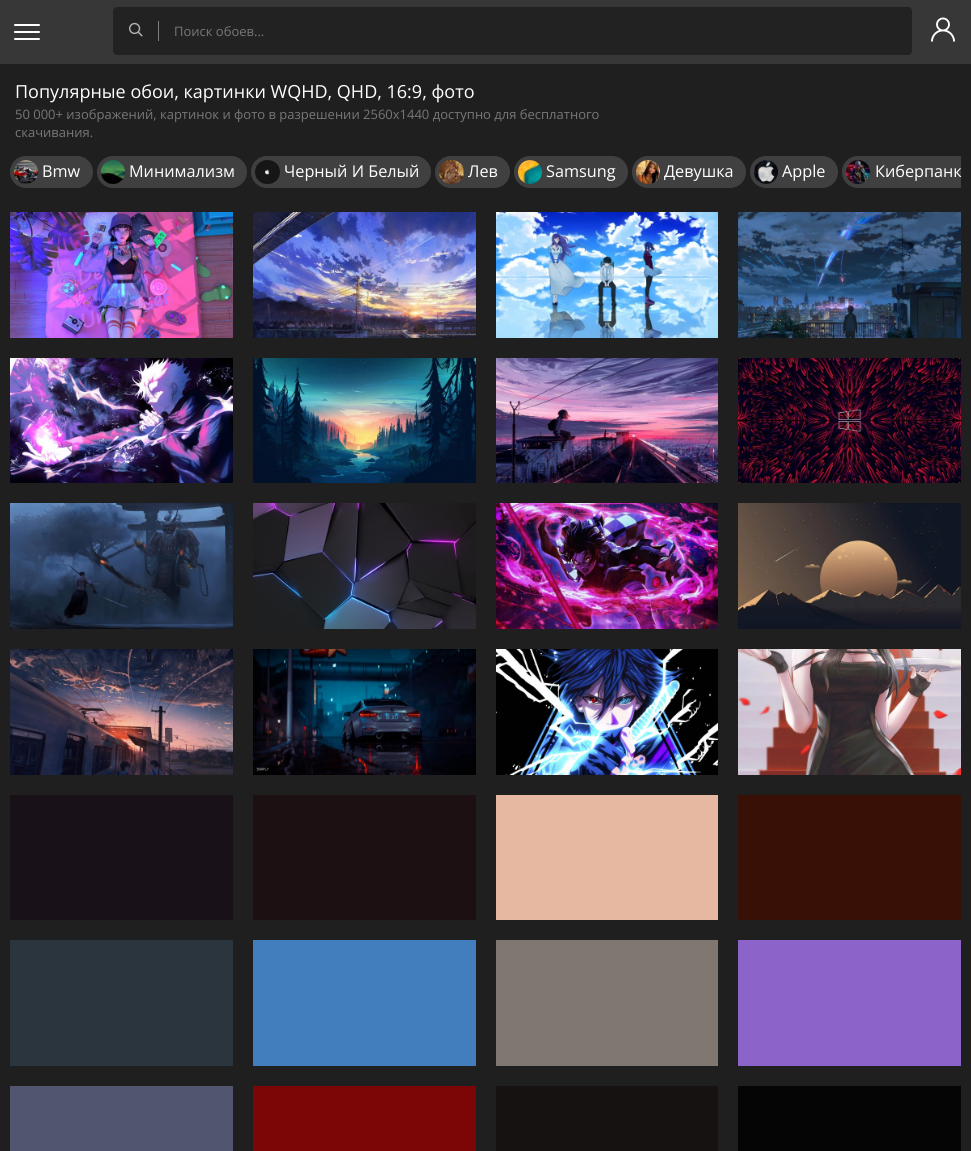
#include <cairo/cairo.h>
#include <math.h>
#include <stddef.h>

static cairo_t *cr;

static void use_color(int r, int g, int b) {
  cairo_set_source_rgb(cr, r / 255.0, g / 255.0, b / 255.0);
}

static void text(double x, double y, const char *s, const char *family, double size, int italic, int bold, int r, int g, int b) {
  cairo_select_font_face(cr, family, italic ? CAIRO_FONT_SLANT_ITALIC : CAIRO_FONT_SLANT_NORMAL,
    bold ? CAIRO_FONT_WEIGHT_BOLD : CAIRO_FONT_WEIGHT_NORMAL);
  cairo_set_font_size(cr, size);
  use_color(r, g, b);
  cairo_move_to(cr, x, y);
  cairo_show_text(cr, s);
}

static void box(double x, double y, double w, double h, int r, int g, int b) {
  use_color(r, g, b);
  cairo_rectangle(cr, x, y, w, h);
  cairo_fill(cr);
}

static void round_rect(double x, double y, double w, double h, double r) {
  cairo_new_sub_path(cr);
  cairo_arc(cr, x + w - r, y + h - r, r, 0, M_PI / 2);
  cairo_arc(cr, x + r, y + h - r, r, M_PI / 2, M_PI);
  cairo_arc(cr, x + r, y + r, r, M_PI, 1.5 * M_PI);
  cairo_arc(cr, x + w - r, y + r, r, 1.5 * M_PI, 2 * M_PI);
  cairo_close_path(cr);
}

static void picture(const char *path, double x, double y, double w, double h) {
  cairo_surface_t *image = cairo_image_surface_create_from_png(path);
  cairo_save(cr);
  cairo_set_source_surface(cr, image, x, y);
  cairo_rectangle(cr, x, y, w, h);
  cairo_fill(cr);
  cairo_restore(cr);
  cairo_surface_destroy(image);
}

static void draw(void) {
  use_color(31, 31, 31);
  cairo_paint(cr);
  box(0, 0, 971, 64, 55, 55, 55);
  use_color(255, 255, 255);
  round_rect(14, 24, 26, 2, 1);
  cairo_fill(cr);
  round_rect(14, 31, 26, 2, 1);
  cairo_fill(cr);
  round_rect(14, 38, 26, 2, 1);
  cairo_fill(cr);
  use_color(34, 34, 34);
  round_rect(113, 7, 799, 48, 4);
  cairo_fill(cr);
  picture("img_01.png", 129, 22, 14, 15);
  box(158, 21, 1, 20, 126, 126, 126);
  picture("img_02.png", 931, 17, 24, 25);
  use_color(64, 64, 64);
  round_rect(10, 156, 83, 32, 16);
  cairo_fill(cr);
  picture("img_03.png", 14, 160, 24, 24);
  round_rect(97, 156, 150, 32, 16);
  cairo_fill(cr);
  picture("img_04.png", 101, 160, 24, 24);
  round_rect(251, 156, 180, 32, 16);
  cairo_fill(cr);
  picture("img_05.png", 255, 160, 25, 24);
  round_rect(435, 156, 75, 32, 16);
  cairo_fill(cr);
  picture("img_06.png", 439, 160, 25, 24);
  round_rect(514, 156, 114, 32, 16);
  cairo_fill(cr);
  picture("img_07.png", 518, 160, 24, 24);
  round_rect(632, 156, 114, 32, 16);
  cairo_fill(cr);
  picture("img_08.png", 636, 160, 24, 24);
  round_rect(750, 156, 88, 32, 16);
  cairo_fill(cr);
  picture("img_09.png", 754, 160, 24, 24);
  cairo_new_path(cr);
  cairo_move_to(cr, 858, 156);
  cairo_line_to(cr, 961, 156);
  cairo_line_to(cr, 961, 188);
  cairo_line_to(cr, 858, 188);
  cairo_curve_to(cr, 849, 188, 842, 181, 842, 172);
  cairo_curve_to(cr, 842, 163, 849, 156, 858, 156);
  cairo_close_path(cr);
  cairo_fill(cr);
  picture("img_10.png", 846, 160, 24, 24);
  picture("img_11.png", 10, 212, 223, 126);
  picture("img_12.png", 10, 358, 223, 125);
  picture("img_13.png", 10, 503, 223, 126);
  picture("img_14.png", 10, 649, 223, 126);
  box(10, 795, 223, 125, 24, 17, 24);
  box(10, 940, 223, 126, 43, 53, 62);
  box(10, 1086, 223, 65, 81, 85, 112);
  picture("img_15.png", 253, 212, 223, 126);
  picture("img_16.png", 253, 358, 223, 125);
  picture("img_17.png", 253, 503, 223, 126);
  picture("img_18.png", 253, 649, 223, 126);
  box(253, 795, 223, 125, 28, 16, 19);
  box(253, 940, 223, 126, 66, 126, 190);
  box(253, 1086, 223, 65, 124, 6, 6);
  picture("img_19.png", 496, 212, 222, 126);
  picture("img_20.png", 496, 358, 222, 125);
  picture("img_21.png", 496, 503, 222, 126);
  picture("img_22.png", 496, 649, 222, 126);
  box(496, 795, 222, 125, 230, 183, 161);
  box(496, 940, 222, 126, 129, 119, 113);
  box(496, 1086, 222, 65, 21, 18, 17);
  picture("img_23.png", 738, 212, 223, 126);
  picture("img_24.png", 738, 358, 223, 125);
  picture("img_25.png", 738, 503, 223, 126);
  picture("img_26.png", 738, 649, 223, 126);
  box(738, 795, 223, 125, 56, 16, 5);
  box(738, 940, 223, 126, 140, 100, 201);
  box(738, 1086, 223, 65, 5, 5, 6);
  text(174, 36, "Поиск обоев...", "Open Sans", 13, 0, 0, 119, 119, 119);
  text(15, 98, "Популярные обои, картинки WQHD, QHD, 16:9, фото", "Open Sans", 18, 0, 0, 255, 255, 255);
  text(15, 119, "50 000+ изображений, картинок и фото в разрешении 2560x1440 доступно для бесплатного", "Open Sans", 13, 0, 0, 119, 119, 119);
  text(15, 137, "скачивания.", "Open Sans", 13, 0, 0, 119, 119, 119);
  text(42, 177, "Bmw", "Open Sans", 16.25, 0, 0, 255, 255, 255);
  text(129, 177, "Минимализм", "Open Sans", 16.25, 0, 0, 255, 255, 255);
  text(284, 177, "Черный И Белый", "Open Sans", 16.25, 0, 0, 255, 255, 255);
  text(468, 177, "Лев", "Open Sans", 16.25, 0, 0, 255, 255, 255);
  text(546, 177, "Samsung", "Open Sans", 16.25, 0, 0, 255, 255, 255);
  text(664, 177, "Девушка", "Open Sans", 16.25, 0, 0, 255, 255, 255);
  text(782, 177, "Apple", "Open Sans", 16.25, 0, 0, 255, 255, 255);
  text(875, 177, "Киберпанк", "Open Sans", 16.25, 0, 0, 255, 255, 255);
}

int main(void) {
  cairo_surface_t *surface = cairo_image_surface_create(CAIRO_FORMAT_RGB24, 971, 1151);
  cr = cairo_create(surface);
  cairo_font_options_t *options = cairo_font_options_create();
  cairo_font_options_set_hint_metrics(options, CAIRO_HINT_METRICS_OFF);
  cairo_font_options_set_hint_style(options, CAIRO_HINT_STYLE_NONE);
  cairo_set_font_options(cr, options);
  cairo_set_miter_limit(cr, 4);
  draw();
  cairo_surface_write_to_png(surface, "out.png");
  cairo_font_options_destroy(options);
  cairo_destroy(cr);
  cairo_surface_destroy(surface);
  return 0;
}
